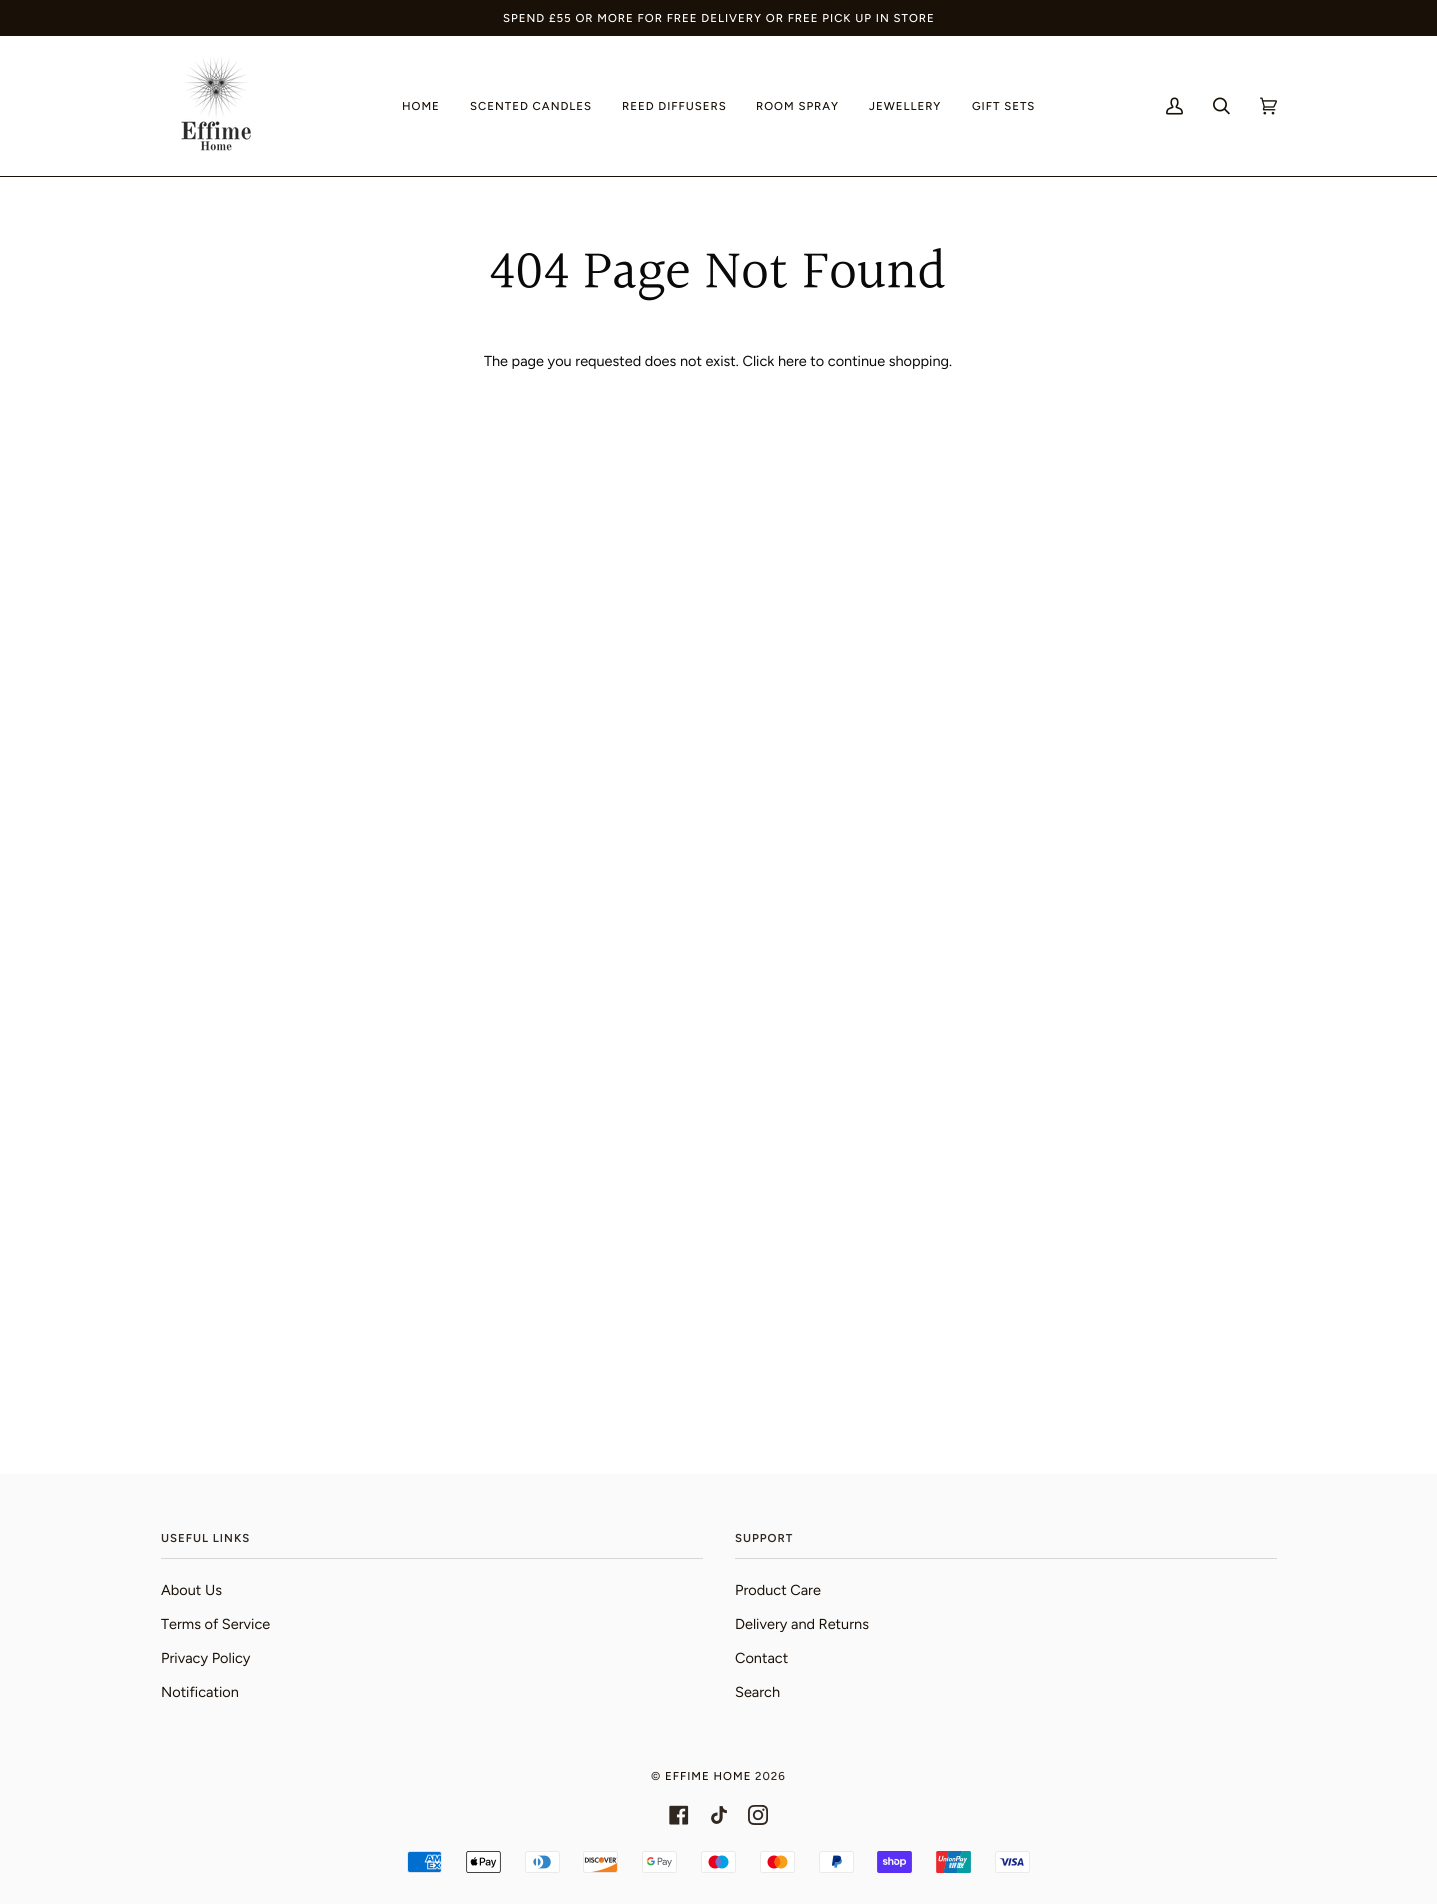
#include <cairo/cairo.h>
#include <math.h>
#include <stddef.h>

static cairo_t *cr;

static void use_color(int r, int g, int b) {
  cairo_set_source_rgb(cr, r / 255.0, g / 255.0, b / 255.0);
}

static void text(double x, double y, const char *s, const char *family, double size, int italic, int bold, int r, int g, int b) {
  cairo_select_font_face(cr, family, italic ? CAIRO_FONT_SLANT_ITALIC : CAIRO_FONT_SLANT_NORMAL,
    bold ? CAIRO_FONT_WEIGHT_BOLD : CAIRO_FONT_WEIGHT_NORMAL);
  cairo_set_font_size(cr, size);
  use_color(r, g, b);
  cairo_move_to(cr, x, y);
  cairo_show_text(cr, s);
}

static void spaced_text(double x, double y, const char *s, double letter, double word) {
  cairo_move_to(cr, x, y);
  while (*s) {
    char ch[5] = {0};
    int n = 0;
    do ch[n++] = *s++; while ((*s & 0xC0) == 0x80);
    cairo_show_text(cr, ch);
    cairo_rel_move_to(cr, letter + word * (*ch == ' '), 0);
  }
}

static void box(double x, double y, double w, double h, int r, int g, int b) {
  use_color(r, g, b);
  cairo_rectangle(cr, x, y, w, h);
  cairo_fill(cr);
}

static void picture(const char *path, double x, double y, double w, double h) {
  cairo_surface_t *image = cairo_image_surface_create_from_png(path);
  cairo_save(cr);
  cairo_set_source_surface(cr, image, x, y);
  cairo_rectangle(cr, x, y, w, h);
  cairo_fill(cr);
  cairo_restore(cr);
  cairo_surface_destroy(image);
}

static void draw(void) {
  use_color(255, 255, 255);
  cairo_paint(cr);
  box(0, 0, 1437, 36, 25, 16, 8);
  box(0, 176, 1437, 1, 25, 16, 8);
  picture("img_01.png", 181, 57, 70, 94);
  picture("img_02.png", 1166, 97, 17, 18);
  picture("img_03.png", 1213, 97, 17, 18);
  picture("img_04.png", 1260, 97, 17, 18);
  box(0, 1474, 1437, 430, 250, 250, 250);
  box(161, 1558, 542, 1, 216, 215, 214);
  box(735, 1558, 542, 1, 216, 215, 214);
  picture("img_05.png", 669, 1805, 20, 20);
  picture("img_06.png", 711, 1806, 16, 18);
  picture("img_07.png", 748, 1805, 20, 20);
  picture("img_08.png", 407, 1851, 35, 22);
  picture("img_09.png", 466, 1851, 35, 22);
  picture("img_10.png", 525, 1851, 35, 22);
  picture("img_11.png", 583, 1851, 35, 22);
  picture("img_12.png", 642, 1851, 35, 22);
  picture("img_13.png", 701, 1851, 35, 22);
  picture("img_14.png", 760, 1851, 35, 22);
  picture("img_15.png", 819, 1851, 35, 22);
  picture("img_16.png", 877, 1851, 35, 22);
  picture("img_17.png", 936, 1851, 35, 22);
  picture("img_18.png", 995, 1851, 35, 22);
  cairo_select_font_face(cr, "Figtree Medium", CAIRO_FONT_SLANT_NORMAL, CAIRO_FONT_WEIGHT_NORMAL);
  cairo_set_font_size(cr, 11.4);
  use_color(255, 255, 255);
  spaced_text(503, 22, "SPEND £55 OR MORE FOR FREE DELIVERY OR FREE PICK UP IN STORE", 1, 0);
  use_color(25, 16, 8);
  spaced_text(402, 110, "HOME", 1, 0);
  spaced_text(470, 110, "SCENTED CANDLES", 1, 0);
  spaced_text(622, 110, "REED DIFFUSERS", 1, 0);
  spaced_text(756, 110, "ROOM SPRAY", 1, 0);
  spaced_text(869, 110, "JEWELLERY", 1, 0);
  spaced_text(972, 110, "GIFT SETS", 1, 0);
  text(489, 290, "404 Page Not Found", "Halant", 55, 0, 0, 10, 9, 9);
  text(484, 366, "The page you requested does not exist. Click here to continue shopping.", "Figtree", 14.5, 0, 0, 10, 9, 9);
  cairo_select_font_face(cr, "Figtree SemiBold", CAIRO_FONT_SLANT_NORMAL, CAIRO_FONT_WEIGHT_NORMAL);
  cairo_set_font_size(cr, 11.4);
  use_color(48, 39, 32);
  spaced_text(161, 1542, "USEFUL LINKS", 1, 0);
  text(161, 1595, "About Us", "Figtree", 14.5, 0, 0, 25, 16, 8);
  text(161, 1629, "Terms of Service", "Figtree", 14.5, 0, 0, 25, 16, 8);
  text(161, 1663, "Privacy Policy", "Figtree", 14.5, 0, 0, 25, 16, 8);
  text(161, 1697, "Notification", "Figtree", 14.5, 0, 0, 25, 16, 8);
  cairo_select_font_face(cr, "Figtree SemiBold", CAIRO_FONT_SLANT_NORMAL, CAIRO_FONT_WEIGHT_NORMAL);
  cairo_set_font_size(cr, 11.4);
  use_color(48, 39, 32);
  spaced_text(735, 1542, "SUPPORT", 1, 0);
  text(735, 1595, "Product Care", "Figtree", 14.5, 0, 0, 25, 16, 8);
  text(735, 1629, "Delivery and Returns", "Figtree", 14.5, 0, 0, 25, 16, 8);
  text(735, 1663, "Contact", "Figtree", 14.5, 0, 0, 25, 16, 8);
  text(735, 1697, "Search", "Figtree", 14.5, 0, 0, 25, 16, 8);
  cairo_select_font_face(cr, "Figtree Medium", CAIRO_FONT_SLANT_NORMAL, CAIRO_FONT_WEIGHT_NORMAL);
  cairo_set_font_size(cr, 11.4);
  use_color(48, 39, 32);
  spaced_text(651, 1780, "©", 1, 0);
  use_color(25, 16, 8);
  spaced_text(665, 1780, "EFFIME HOME", 1, 0);
  use_color(48, 39, 32);
  spaced_text(755, 1780, "2026", 1, 0);
}

int main(void) {
  cairo_surface_t *surface = cairo_image_surface_create(CAIRO_FORMAT_RGB24, 1437, 1904);
  cr = cairo_create(surface);
  cairo_font_options_t *options = cairo_font_options_create();
  cairo_font_options_set_hint_metrics(options, CAIRO_HINT_METRICS_OFF);
  cairo_font_options_set_hint_style(options, CAIRO_HINT_STYLE_NONE);
  cairo_set_font_options(cr, options);
  cairo_set_miter_limit(cr, 4);
  draw();
  cairo_surface_write_to_png(surface, "out.png");
  cairo_font_options_destroy(options);
  cairo_destroy(cr);
  cairo_surface_destroy(surface);
  return 0;
}
